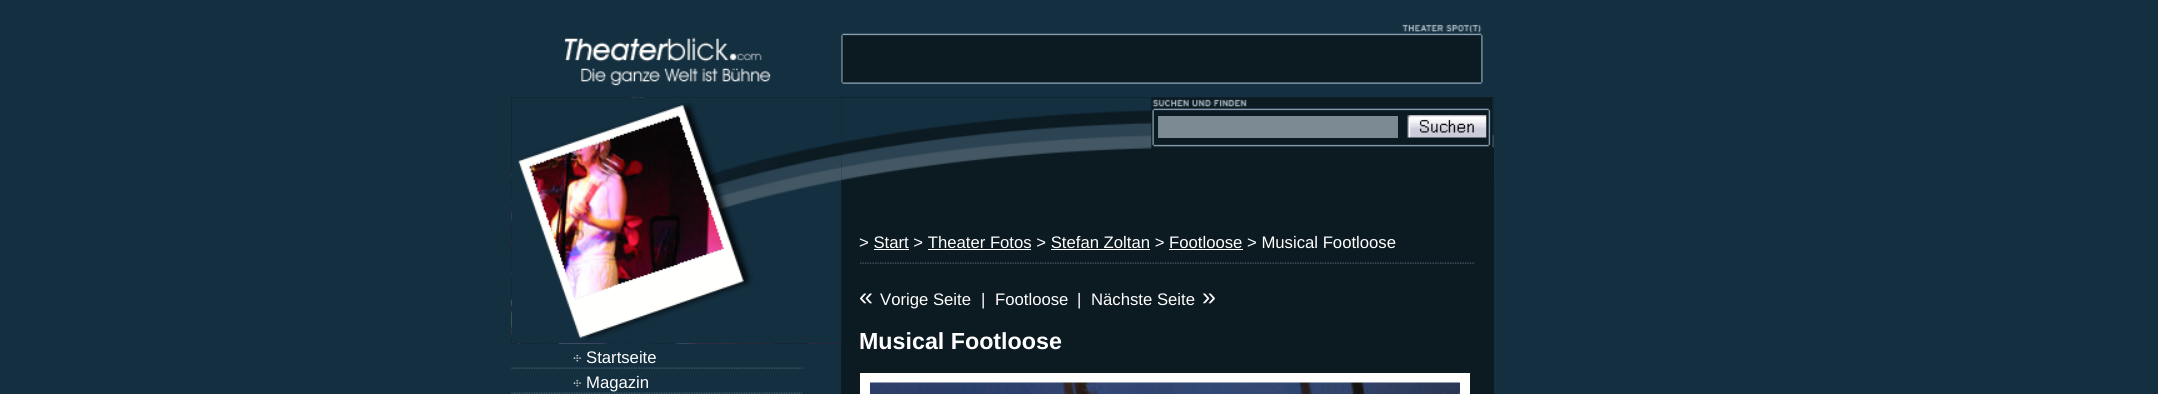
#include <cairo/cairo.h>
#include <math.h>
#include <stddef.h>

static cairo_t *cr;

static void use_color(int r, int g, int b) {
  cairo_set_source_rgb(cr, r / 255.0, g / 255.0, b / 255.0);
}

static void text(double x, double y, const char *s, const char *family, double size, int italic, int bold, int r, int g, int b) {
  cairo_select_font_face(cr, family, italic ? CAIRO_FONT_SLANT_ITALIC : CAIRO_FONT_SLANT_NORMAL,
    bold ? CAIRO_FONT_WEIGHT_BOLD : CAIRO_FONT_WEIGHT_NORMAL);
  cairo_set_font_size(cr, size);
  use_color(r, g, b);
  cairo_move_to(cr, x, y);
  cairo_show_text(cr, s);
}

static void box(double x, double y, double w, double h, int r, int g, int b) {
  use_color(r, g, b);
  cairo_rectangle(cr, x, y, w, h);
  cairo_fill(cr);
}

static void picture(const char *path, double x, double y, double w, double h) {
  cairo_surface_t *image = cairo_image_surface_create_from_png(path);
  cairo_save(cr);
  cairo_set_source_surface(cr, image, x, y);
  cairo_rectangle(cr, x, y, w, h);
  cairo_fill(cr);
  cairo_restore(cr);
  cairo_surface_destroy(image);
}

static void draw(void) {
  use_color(20, 47, 64);
  cairo_paint(cr);
  picture("img_02.png", 841, 24, 642, 60);
  box(841, 97, 653, 297, 12, 26, 34);
  picture("img_03.png", 841, 97, 653, 84);
  picture("img_08.png", 511, 97, 330, 247);
  picture("img_01.png", 511, 35, 331, 63);
  picture("img_04.png", 1151, 97, 342, 52);
  box(1158, 116, 240, 22, 123, 138, 147);
  picture("img_05.png", 1407, 115, 80, 23);
  picture("img_06.png", 860, 262, 615, 2);
  box(874, 249, 35, 1, 255, 255, 255);
  box(928, 249, 103, 1, 255, 255, 255);
  box(1051, 249, 99, 1, 255, 255, 255);
  box(1169, 249, 74, 1, 255, 255, 255);
  box(870, 373, 590, 10, 255, 255, 255);
  box(1460, 373, 10, 21, 255, 255, 255);
  box(860, 373, 10, 21, 255, 255, 255);
  picture("img_07.png", 870, 382, 590, 12);
  picture("img_10.png", 511, 343, 292, 51);
  picture("img_09.png", 511, 97, 331, 247);
  picture("img_11.png", 573, 354, 8, 8);
  picture("img_11.png", 573, 379, 8, 8);
  text(859, 248, "> Start > Theater Fotos > Stefan Zoltan > Footloose > Musical Footloose", "Liberation Sans", 16.7, 0, 0, 255, 255, 255);
  text(859, 305, "«", "Liberation Sans", 25, 0, 0, 255, 255, 255);
  text(880, 305, "Vorige Seite", "Liberation Sans", 16.7, 0, 0, 255, 255, 255);
  text(981, 305, "|", "Liberation Sans", 16.7, 0, 0, 255, 255, 255);
  text(995, 305, "Footloose", "Liberation Sans", 16.7, 0, 0, 255, 255, 255);
  text(1077, 305, "|", "Liberation Sans", 16.7, 0, 0, 255, 255, 255);
  text(1091, 305, "Nächste Seite", "Liberation Sans", 16.7, 0, 0, 255, 255, 255);
  text(1202, 305, "»", "Liberation Sans", 25, 0, 0, 255, 255, 255);
  text(859, 349, "Musical Footloose", "Liberation Sans", 23.25, 0, 1, 255, 255, 255);
  text(586, 363, "Startseite", "Liberation Sans", 16.7, 0, 0, 255, 255, 255);
  text(586, 388, "Magazin", "Liberation Sans", 16.7, 0, 0, 255, 255, 255);
}

int main(void) {
  cairo_surface_t *surface = cairo_image_surface_create(CAIRO_FORMAT_RGB24, 2158, 394);
  cr = cairo_create(surface);
  cairo_font_options_t *options = cairo_font_options_create();
  cairo_font_options_set_hint_metrics(options, CAIRO_HINT_METRICS_OFF);
  cairo_font_options_set_hint_style(options, CAIRO_HINT_STYLE_NONE);
  cairo_set_font_options(cr, options);
  cairo_set_miter_limit(cr, 4);
  draw();
  cairo_surface_write_to_png(surface, "out.png");
  cairo_font_options_destroy(options);
  cairo_destroy(cr);
  cairo_surface_destroy(surface);
  return 0;
}
